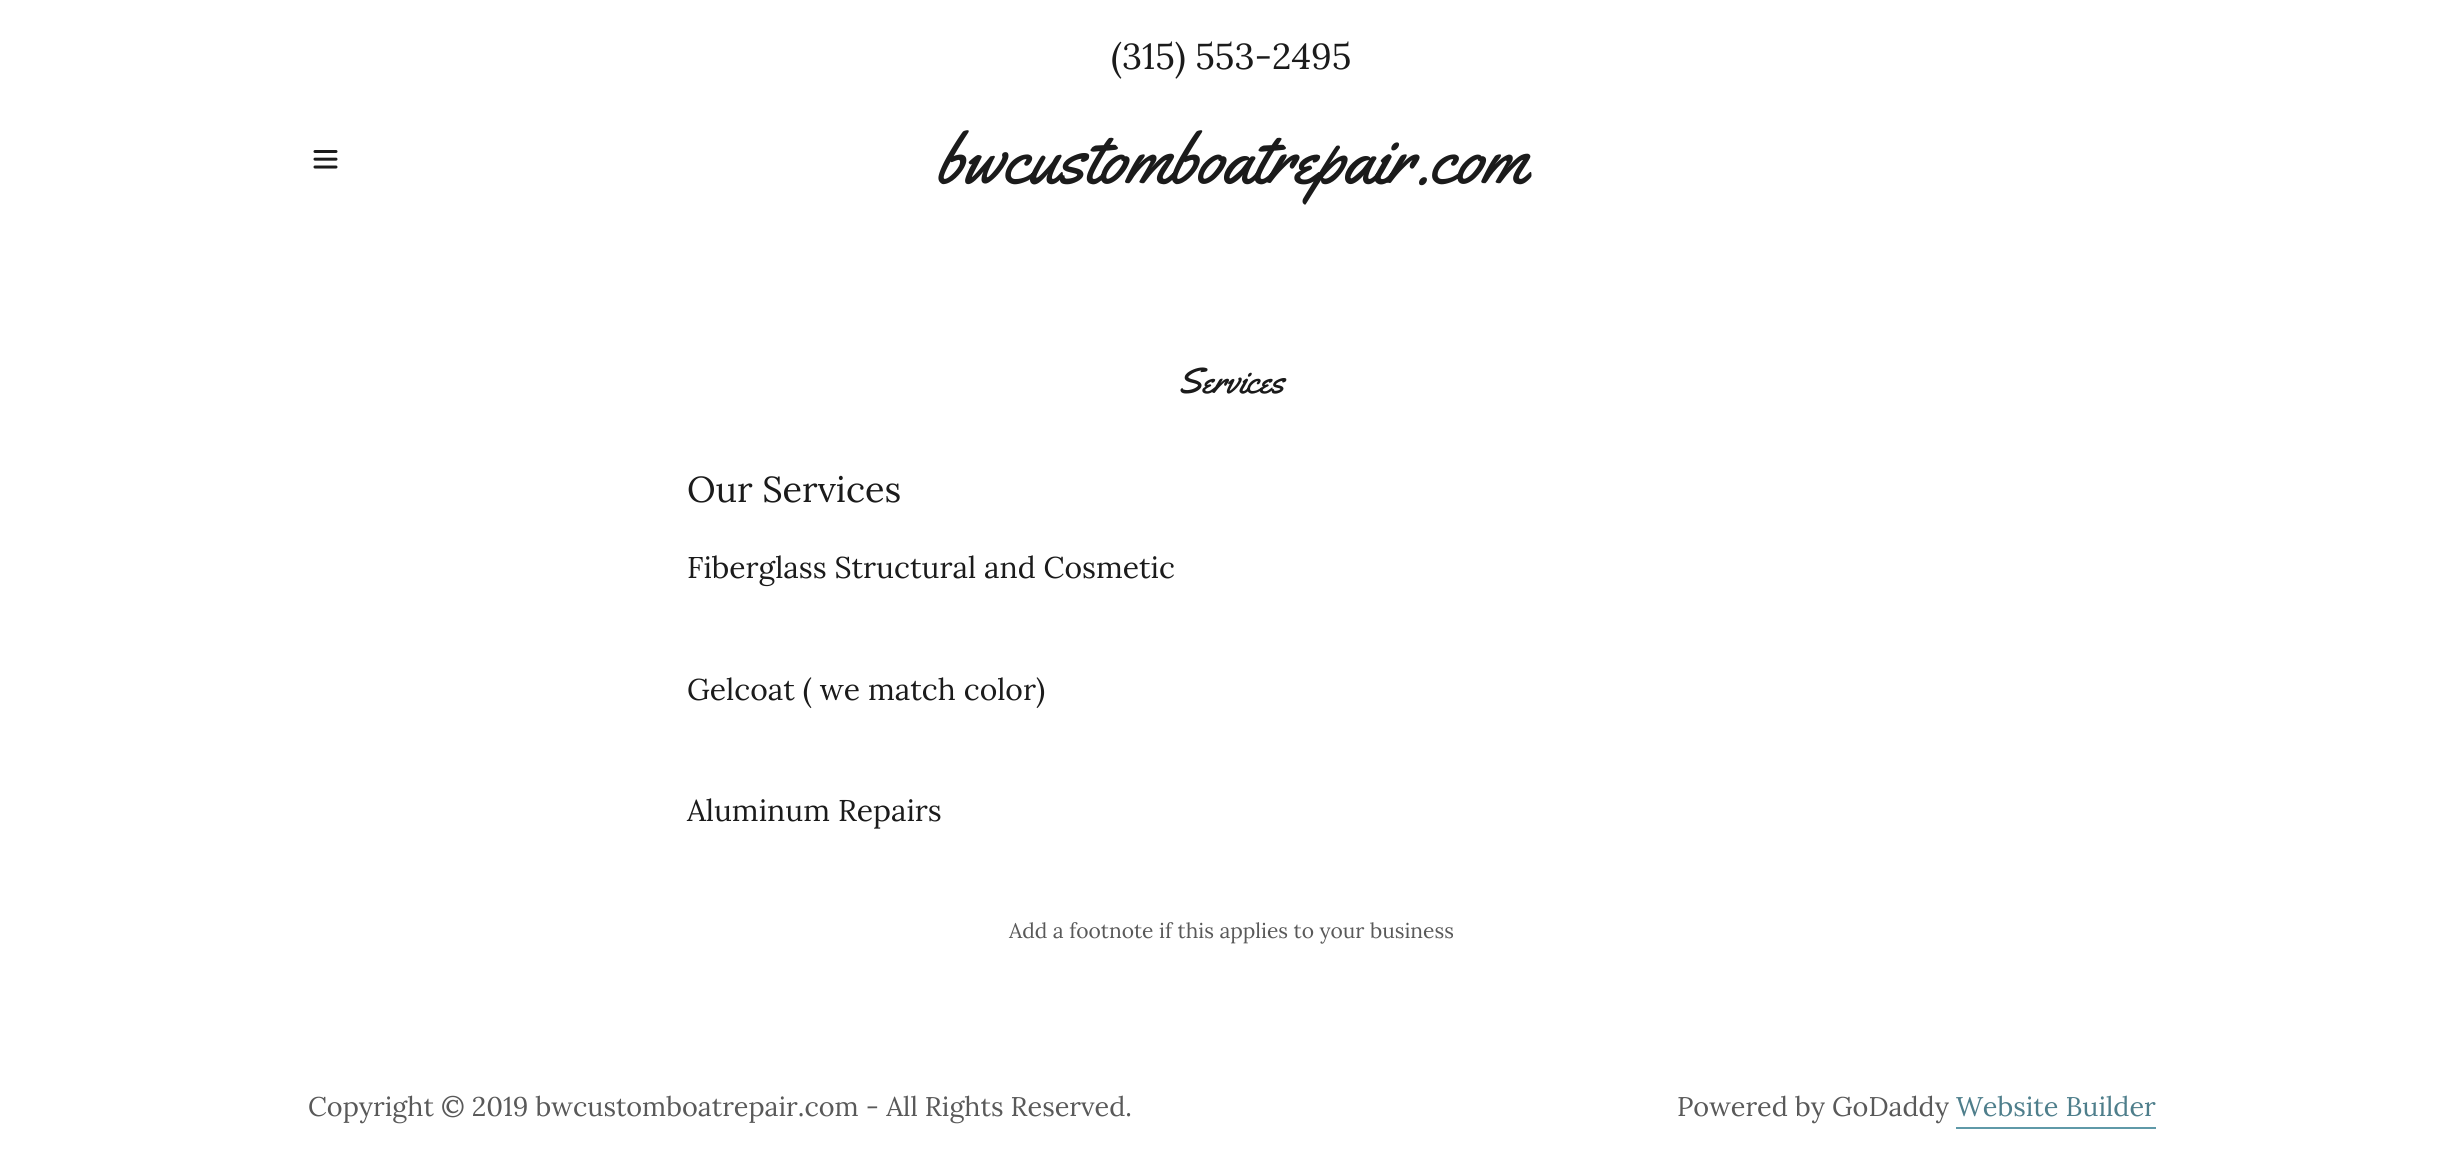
#include <cairo/cairo.h>
#include <math.h>
#include <stddef.h>

static cairo_t *cr;

static void use_color(int r, int g, int b) {
  cairo_set_source_rgb(cr, r / 255.0, g / 255.0, b / 255.0);
}

static void text(double x, double y, const char *s, const char *family, double size, int italic, int bold, int r, int g, int b) {
  cairo_select_font_face(cr, family, italic ? CAIRO_FONT_SLANT_ITALIC : CAIRO_FONT_SLANT_NORMAL,
    bold ? CAIRO_FONT_WEIGHT_BOLD : CAIRO_FONT_WEIGHT_NORMAL);
  cairo_set_font_size(cr, size);
  use_color(r, g, b);
  cairo_move_to(cr, x, y);
  cairo_show_text(cr, s);
}

static void box(double x, double y, double w, double h, int r, int g, int b) {
  use_color(r, g, b);
  cairo_rectangle(cr, x, y, w, h);
  cairo_fill(cr);
}

static void picture(const char *path, double x, double y, double w, double h) {
  cairo_surface_t *image = cairo_image_surface_create_from_png(path);
  cairo_save(cr);
  cairo_set_source_surface(cr, image, x, y);
  cairo_rectangle(cr, x, y, w, h);
  cairo_fill(cr);
  cairo_restore(cr);
  cairo_surface_destroy(image);
}

static void draw(void) {
  use_color(255, 255, 255);
  cairo_paint(cr);
  picture("img_01.png", 313, 150, 25, 19);
  box(1956, 1127, 200, 2, 95, 153, 168);
  text(1111, 69, "(315) 553-2495", "Lora", 36, 0, 0, 27, 27, 27);
  text(937, 183, "bwcustomboatrepair.com", "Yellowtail", 72, 0, 0, 27, 27, 27);
  text(1178, 393, "Services", "Yellowtail", 36, 0, 0, 27, 27, 27);
  text(687, 502, "Our Services", "Lora", 36, 0, 0, 27, 27, 27);
  text(687, 578, "Fiberglass Structural and Cosmetic", "Lora", 30, 0, 0, 27, 27, 27);
  text(687, 700, "Gelcoat ( we match color)", "Lora", 30, 0, 0, 27, 27, 27);
  text(687, 821, "Aluminum Repairs", "Lora", 30, 0, 0, 27, 27, 27);
  text(1009, 938, "Add a footnote if this applies to your business", "Lora", 21, 0, 0, 89, 89, 89);
  text(308, 1116, "Copyright © 2019 bwcustomboatrepair.com - All Rights Reserved.", "Lora", 27, 0, 0, 89, 89, 89);
  text(1677, 1116, "Powered by GoDaddy", "Lora", 27, 0, 0, 89, 89, 89);
  text(1956, 1116, "Website Builder", "Lora", 27, 0, 0, 78, 126, 139);
}

int main(void) {
  cairo_surface_t *surface = cairo_image_surface_create(CAIRO_FORMAT_RGB24, 2463, 1169);
  cr = cairo_create(surface);
  cairo_font_options_t *options = cairo_font_options_create();
  cairo_font_options_set_hint_metrics(options, CAIRO_HINT_METRICS_OFF);
  cairo_font_options_set_hint_style(options, CAIRO_HINT_STYLE_NONE);
  cairo_set_font_options(cr, options);
  cairo_set_miter_limit(cr, 4);
  draw();
  cairo_surface_write_to_png(surface, "out.png");
  cairo_font_options_destroy(options);
  cairo_destroy(cr);
  cairo_surface_destroy(surface);
  return 0;
}
